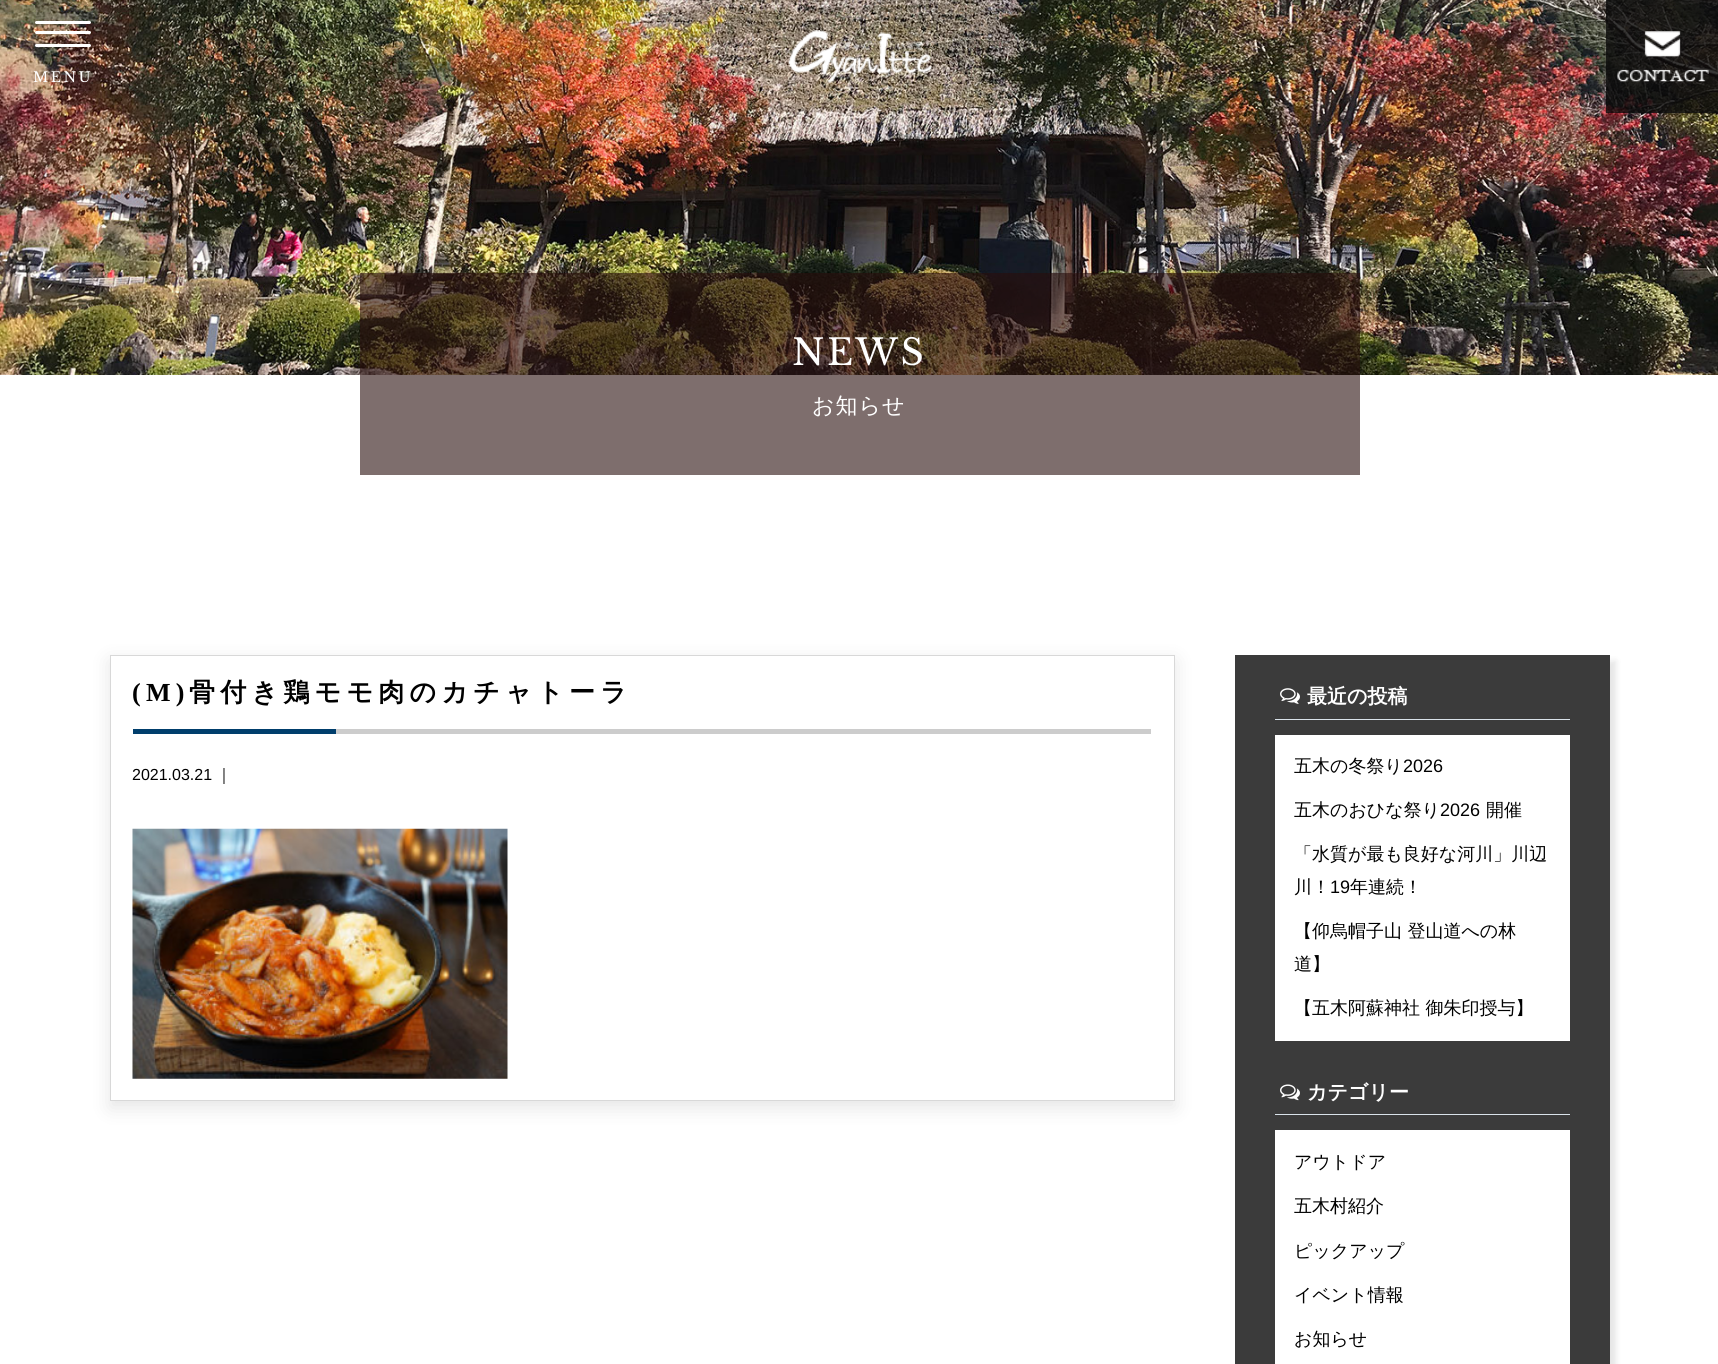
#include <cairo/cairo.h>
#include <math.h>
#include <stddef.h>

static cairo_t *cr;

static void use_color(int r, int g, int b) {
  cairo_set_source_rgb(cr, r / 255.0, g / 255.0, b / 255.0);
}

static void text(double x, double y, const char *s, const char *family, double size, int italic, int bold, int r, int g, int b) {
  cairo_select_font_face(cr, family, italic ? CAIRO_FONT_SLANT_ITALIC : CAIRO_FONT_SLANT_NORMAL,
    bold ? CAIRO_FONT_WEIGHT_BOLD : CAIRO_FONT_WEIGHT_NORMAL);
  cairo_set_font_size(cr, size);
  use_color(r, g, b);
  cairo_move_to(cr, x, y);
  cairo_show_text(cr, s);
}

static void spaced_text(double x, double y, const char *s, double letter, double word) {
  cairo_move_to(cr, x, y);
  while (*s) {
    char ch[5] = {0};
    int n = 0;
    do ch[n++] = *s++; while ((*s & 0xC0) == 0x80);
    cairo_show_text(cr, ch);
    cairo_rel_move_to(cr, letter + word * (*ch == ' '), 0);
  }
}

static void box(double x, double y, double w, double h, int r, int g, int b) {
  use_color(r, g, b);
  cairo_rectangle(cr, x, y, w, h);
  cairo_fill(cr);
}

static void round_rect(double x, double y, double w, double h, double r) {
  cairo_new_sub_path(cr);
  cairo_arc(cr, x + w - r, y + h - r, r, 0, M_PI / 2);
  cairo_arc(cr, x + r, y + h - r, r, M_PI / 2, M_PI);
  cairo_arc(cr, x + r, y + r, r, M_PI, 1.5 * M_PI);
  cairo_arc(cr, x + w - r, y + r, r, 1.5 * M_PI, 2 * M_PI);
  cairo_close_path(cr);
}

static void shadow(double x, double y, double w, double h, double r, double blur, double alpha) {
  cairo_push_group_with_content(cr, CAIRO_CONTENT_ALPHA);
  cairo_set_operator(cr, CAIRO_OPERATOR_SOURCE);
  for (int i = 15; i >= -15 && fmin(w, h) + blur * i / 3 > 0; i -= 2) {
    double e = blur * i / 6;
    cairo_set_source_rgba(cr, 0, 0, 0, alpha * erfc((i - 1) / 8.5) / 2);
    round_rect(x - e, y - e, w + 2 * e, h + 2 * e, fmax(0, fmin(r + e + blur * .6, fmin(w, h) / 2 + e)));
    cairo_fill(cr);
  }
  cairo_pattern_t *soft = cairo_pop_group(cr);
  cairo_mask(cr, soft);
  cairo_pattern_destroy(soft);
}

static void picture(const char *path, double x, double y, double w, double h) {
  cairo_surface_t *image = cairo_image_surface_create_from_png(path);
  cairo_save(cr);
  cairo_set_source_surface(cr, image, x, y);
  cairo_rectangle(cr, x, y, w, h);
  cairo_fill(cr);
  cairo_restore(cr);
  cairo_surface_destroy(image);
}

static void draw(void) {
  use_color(255, 255, 255);
  cairo_paint(cr);
  picture("img_03.png", 0, 0, 1718, 375);
  use_color(255, 255, 255);
  round_rect(35, 21, 56, 3, 1.5);
  cairo_fill(cr);
  round_rect(35, 31, 56, 3, 1.5);
  cairo_fill(cr);
  round_rect(35, 44, 56, 3, 1.5);
  cairo_fill(cr);
  picture("img_01.png", 788, 30, 144, 53);
  cairo_set_source_rgba(cr, 0.039, 0.039, 0.039, 0.8);
  cairo_rectangle(cr, 1606, 0, 112, 113);
  cairo_fill(cr);
  picture("img_02.png", 1617, 31, 92, 51);
  cairo_set_source_rgba(cr, 0.161, 0.055, 0.051, 0.6);
  cairo_rectangle(cr, 360, 273, 1000, 202);
  cairo_fill(cr);
  cairo_save(cr);
  cairo_set_fill_rule(cr, CAIRO_FILL_RULE_EVEN_ODD);
  cairo_new_path(cr);
  cairo_move_to(cr, 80, 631);
  cairo_line_to(cr, 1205, 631);
  cairo_line_to(cr, 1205, 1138);
  cairo_line_to(cr, 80, 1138);
  cairo_close_path(cr);
  cairo_move_to(cr, 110, 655);
  cairo_line_to(cr, 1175, 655);
  cairo_line_to(cr, 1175, 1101);
  cairo_line_to(cr, 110, 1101);
  cairo_close_path(cr);
  cairo_clip(cr);
  use_color(0, 0, 0);
  shadow(110, 661, 1065, 447, 0, 9.5, 0.1);
  cairo_restore(cr);
  cairo_rectangle(cr, 110.5, 655.5, 1064, 445);
  use_color(216, 216, 216);
  cairo_set_line_width(cr, 1);
  cairo_stroke(cr);
  box(336, 729, 815, 5, 204, 204, 204);
  box(133, 729, 203, 5, 0, 62, 108);
  picture("img_04.png", 132, 828, 376, 251);
  use_color(0, 0, 0);
  shadow(1241, 661, 375, 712, 0, 3, 0.1);
  box(1235, 655, 375, 709, 59, 59, 59);
  box(1275, 719, 295, 1, 217, 226, 233);
  picture("img_05.png", 1280, 688, 20, 16);
  box(1275, 735, 295, 306, 255, 255, 255);
  box(1275, 1114, 295, 1, 217, 226, 233);
  picture("img_06.png", 1280, 1084, 20, 17);
  box(1275, 1130, 295, 234, 255, 255, 255);
  cairo_select_font_face(cr, "Libre Baskerville", CAIRO_FONT_SLANT_NORMAL, CAIRO_FONT_WEIGHT_NORMAL);
  cairo_set_font_size(cr, 14);
  spaced_text(33, 82, "MENU", 2.5, 0);
  cairo_set_font_size(cr, 36);
  spaced_text(792, 365, "NEWS", 2.5, 0);
  cairo_select_font_face(cr, "WenQuanYi Zen Hei Medium", CAIRO_FONT_SLANT_NORMAL, CAIRO_FONT_WEIGHT_NORMAL);
  cairo_set_font_size(cr, 22);
  spaced_text(812, 413, "お知らせ", 1, 0);
  cairo_select_font_face(cr, "Liberation Serif", CAIRO_FONT_SLANT_NORMAL, CAIRO_FONT_WEIGHT_BOLD);
  cairo_set_font_size(cr, 26);
  use_color(0, 0, 0);
  spaced_text(132, 701, "(M)", 5.25, 0);
  cairo_select_font_face(cr, "WenQuanYi Zen Hei", CAIRO_FONT_SLANT_NORMAL, CAIRO_FONT_WEIGHT_BOLD);
  spaced_text(189, 701, "骨付き鶏モモ肉のカチャトーラ", 5.25, 0);
  text(132, 780, "2021.03.21", "Liberation Sans", 16, 0, 0, 0, 0, 0);
  text(216, 780, "｜", "WenQuanYi Zen Hei Medium", 16, 0, 0, 0, 0, 0);
  text(1307, 703, "最近の投稿", "WenQuanYi Zen Hei", 20, 0, 1, 255, 255, 255);
  text(1294, 772, "五木の冬祭り", "WenQuanYi Zen Hei Medium", 18, 0, 0, 0, 0, 0);
  text(1403, 772, "2026", "Liberation Sans", 18, 0, 0, 0, 0, 0);
  text(1294, 816, "五木のおひな祭り", "WenQuanYi Zen Hei Medium", 18, 0, 0, 0, 0, 0);
  text(1440, 816, "2026", "Liberation Sans", 18, 0, 0, 0, 0, 0);
  text(1486, 816, "開催", "WenQuanYi Zen Hei Medium", 18, 0, 0, 0, 0, 0);
  text(1294, 860, "「水質が最も良好な河川」川辺", "WenQuanYi Zen Hei Medium", 18, 0, 0, 0, 0, 0);
  text(1294, 893, "川！", "WenQuanYi Zen Hei Medium", 18, 0, 0, 0, 0, 0);
  text(1330, 893, "19", "Liberation Sans", 18, 0, 0, 0, 0, 0);
  text(1350, 893, "年連続！", "WenQuanYi Zen Hei Medium", 18, 0, 0, 0, 0, 0);
  text(1294, 937, "【仰烏帽子山 登山道への林", "WenQuanYi Zen Hei Medium", 18, 0, 0, 0, 0, 0);
  text(1294, 970, "道】", "WenQuanYi Zen Hei Medium", 18, 0, 0, 0, 0, 0);
  text(1294, 1014, "【五木阿蘇神社 御朱印授与】", "WenQuanYi Zen Hei Medium", 18, 0, 0, 0, 0, 0);
  text(1307, 1099, "カテゴリー", "WenQuanYi Zen Hei", 20, 0, 1, 255, 255, 255);
  text(1294, 1168, "アウトドア", "WenQuanYi Zen Hei Medium", 18, 0, 0, 0, 0, 0);
  text(1294, 1212, "五木村紹介", "WenQuanYi Zen Hei Medium", 18, 0, 0, 0, 0, 0);
  text(1294, 1257, "ピックアップ", "WenQuanYi Zen Hei Medium", 18, 0, 0, 0, 0, 0);
  text(1294, 1301, "イベント情報", "WenQuanYi Zen Hei Medium", 18, 0, 0, 0, 0, 0);
  text(1294, 1345, "お知らせ", "WenQuanYi Zen Hei Medium", 18, 0, 0, 0, 0, 0);
}

int main(void) {
  cairo_surface_t *surface = cairo_image_surface_create(CAIRO_FORMAT_RGB24, 1718, 1364);
  cr = cairo_create(surface);
  cairo_font_options_t *options = cairo_font_options_create();
  cairo_font_options_set_hint_metrics(options, CAIRO_HINT_METRICS_OFF);
  cairo_font_options_set_hint_style(options, CAIRO_HINT_STYLE_NONE);
  cairo_set_font_options(cr, options);
  cairo_set_miter_limit(cr, 4);
  draw();
  cairo_surface_write_to_png(surface, "out.png");
  cairo_font_options_destroy(options);
  cairo_destroy(cr);
  cairo_surface_destroy(surface);
  return 0;
}
